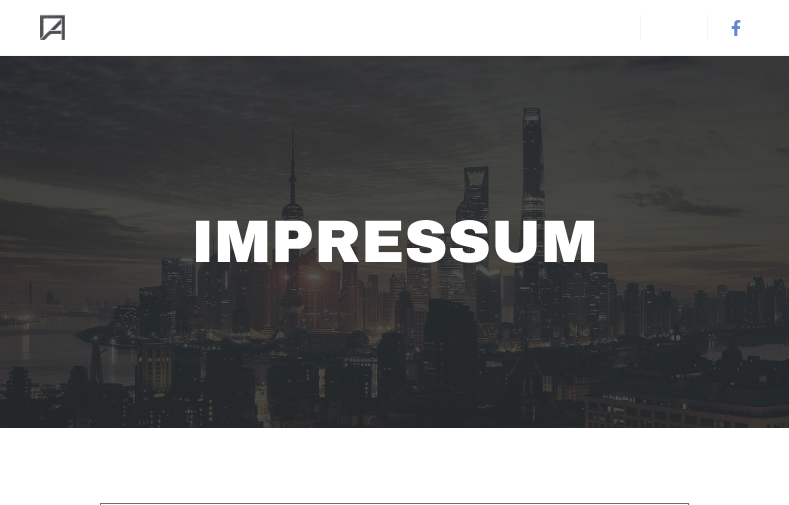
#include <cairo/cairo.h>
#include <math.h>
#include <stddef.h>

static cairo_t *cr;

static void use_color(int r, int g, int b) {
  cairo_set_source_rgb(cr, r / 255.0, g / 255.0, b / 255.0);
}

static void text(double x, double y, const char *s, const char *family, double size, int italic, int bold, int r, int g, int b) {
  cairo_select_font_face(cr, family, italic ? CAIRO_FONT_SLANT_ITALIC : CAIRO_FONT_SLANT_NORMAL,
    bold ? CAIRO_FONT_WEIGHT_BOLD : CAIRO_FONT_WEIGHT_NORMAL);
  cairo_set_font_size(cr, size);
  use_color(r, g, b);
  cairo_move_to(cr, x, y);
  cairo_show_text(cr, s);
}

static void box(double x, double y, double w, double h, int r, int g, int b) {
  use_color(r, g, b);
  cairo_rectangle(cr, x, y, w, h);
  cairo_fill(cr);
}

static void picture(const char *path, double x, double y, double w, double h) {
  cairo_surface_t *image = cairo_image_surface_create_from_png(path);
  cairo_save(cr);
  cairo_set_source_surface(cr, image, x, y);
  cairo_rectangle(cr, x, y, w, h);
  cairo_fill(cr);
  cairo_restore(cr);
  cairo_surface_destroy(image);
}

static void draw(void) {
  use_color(255, 255, 255);
  cairo_paint(cr);
  box(0, 55, 789, 1, 245, 245, 245);
  picture("img_01.png", 40, 14, 25, 26);
  box(640, 15, 1, 25, 245, 245, 245);
  box(707, 15, 1, 25, 245, 245, 245);
  picture("img_02.png", 731, 20, 10, 16);
  picture("img_03.png", 0, 56, 789, 372);
  box(100, 503, 589, 1, 109, 109, 109);
  box(688, 503, 1, 2, 109, 109, 109);
  box(100, 503, 1, 2, 109, 109, 109);
  text(191, 262, "IMPRESSUM", "Archivo Black Black", 60, 0, 0, 255, 255, 255);
}

int main(void) {
  cairo_surface_t *surface = cairo_image_surface_create(CAIRO_FORMAT_RGB24, 789, 505);
  cr = cairo_create(surface);
  cairo_font_options_t *options = cairo_font_options_create();
  cairo_font_options_set_hint_metrics(options, CAIRO_HINT_METRICS_OFF);
  cairo_font_options_set_hint_style(options, CAIRO_HINT_STYLE_NONE);
  cairo_set_font_options(cr, options);
  cairo_set_miter_limit(cr, 4);
  draw();
  cairo_surface_write_to_png(surface, "out.png");
  cairo_font_options_destroy(options);
  cairo_destroy(cr);
  cairo_surface_destroy(surface);
  return 0;
}
